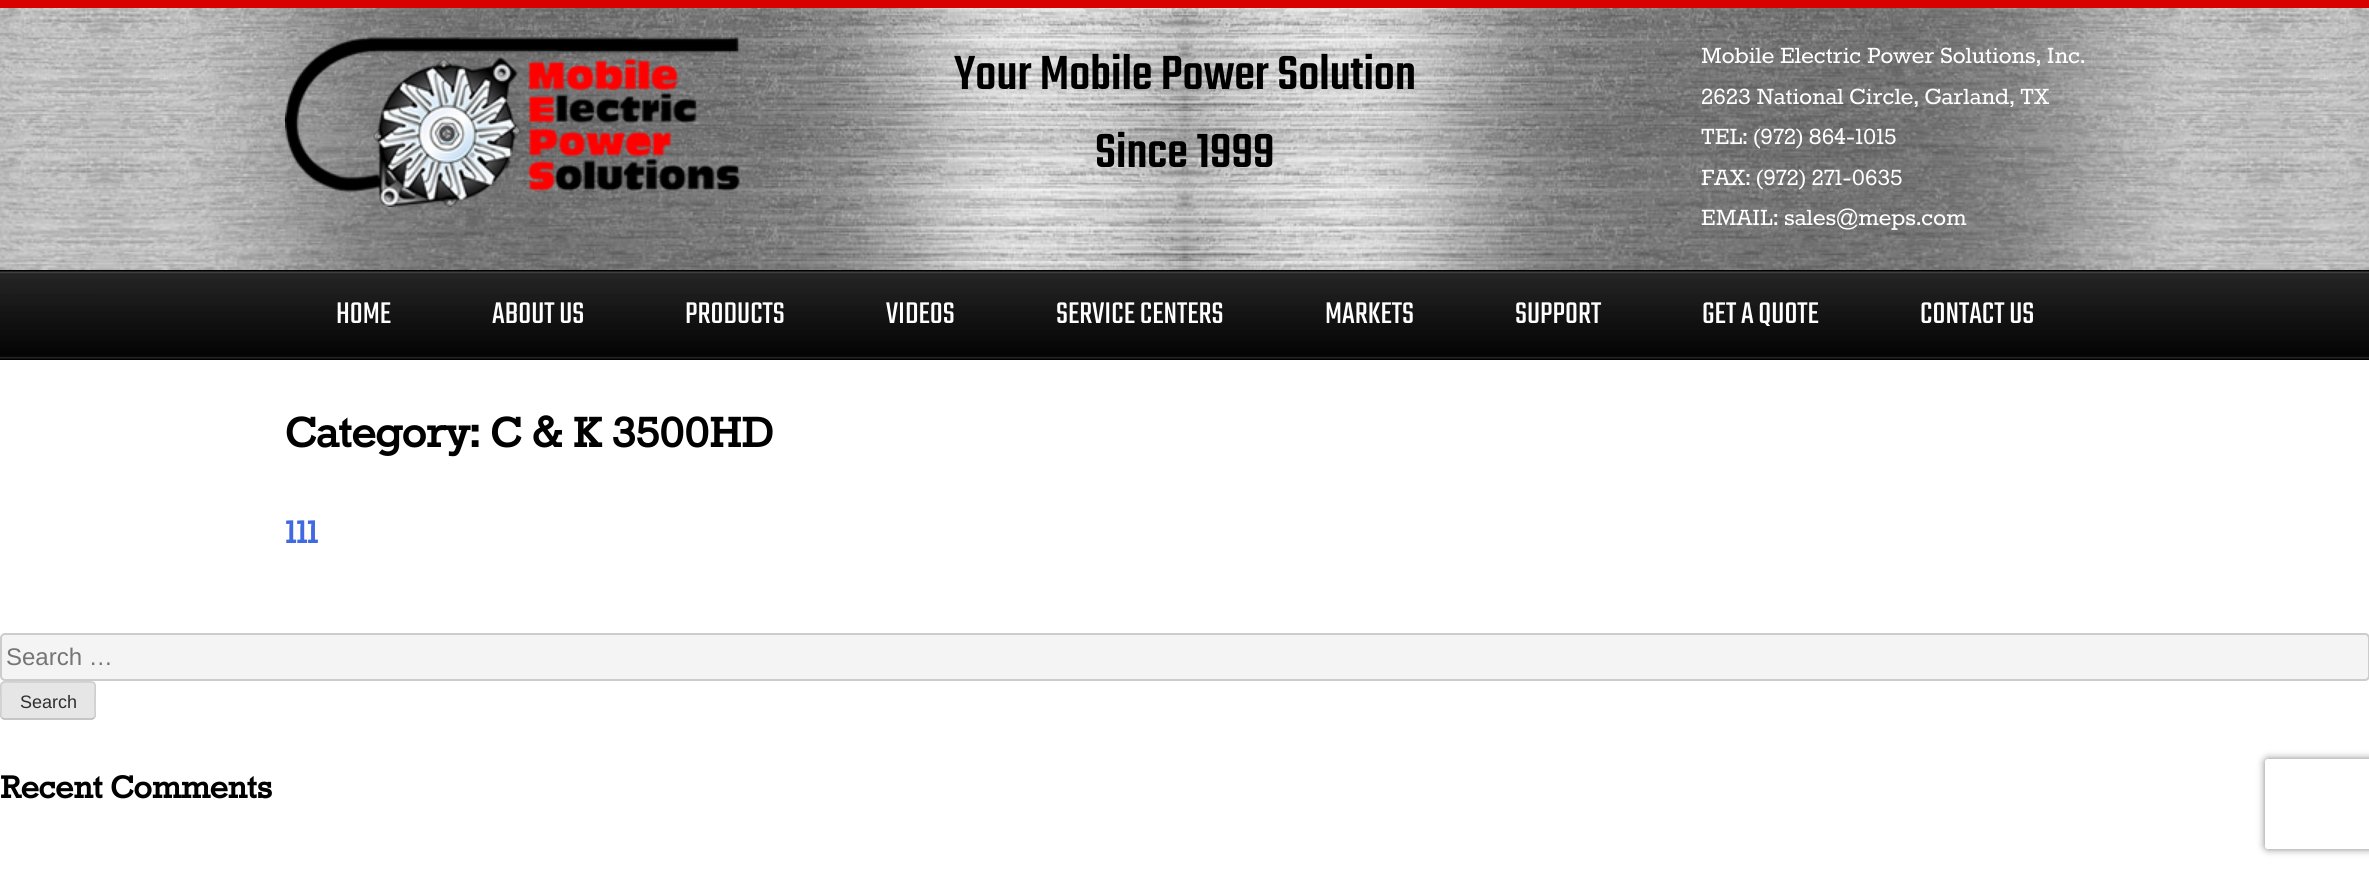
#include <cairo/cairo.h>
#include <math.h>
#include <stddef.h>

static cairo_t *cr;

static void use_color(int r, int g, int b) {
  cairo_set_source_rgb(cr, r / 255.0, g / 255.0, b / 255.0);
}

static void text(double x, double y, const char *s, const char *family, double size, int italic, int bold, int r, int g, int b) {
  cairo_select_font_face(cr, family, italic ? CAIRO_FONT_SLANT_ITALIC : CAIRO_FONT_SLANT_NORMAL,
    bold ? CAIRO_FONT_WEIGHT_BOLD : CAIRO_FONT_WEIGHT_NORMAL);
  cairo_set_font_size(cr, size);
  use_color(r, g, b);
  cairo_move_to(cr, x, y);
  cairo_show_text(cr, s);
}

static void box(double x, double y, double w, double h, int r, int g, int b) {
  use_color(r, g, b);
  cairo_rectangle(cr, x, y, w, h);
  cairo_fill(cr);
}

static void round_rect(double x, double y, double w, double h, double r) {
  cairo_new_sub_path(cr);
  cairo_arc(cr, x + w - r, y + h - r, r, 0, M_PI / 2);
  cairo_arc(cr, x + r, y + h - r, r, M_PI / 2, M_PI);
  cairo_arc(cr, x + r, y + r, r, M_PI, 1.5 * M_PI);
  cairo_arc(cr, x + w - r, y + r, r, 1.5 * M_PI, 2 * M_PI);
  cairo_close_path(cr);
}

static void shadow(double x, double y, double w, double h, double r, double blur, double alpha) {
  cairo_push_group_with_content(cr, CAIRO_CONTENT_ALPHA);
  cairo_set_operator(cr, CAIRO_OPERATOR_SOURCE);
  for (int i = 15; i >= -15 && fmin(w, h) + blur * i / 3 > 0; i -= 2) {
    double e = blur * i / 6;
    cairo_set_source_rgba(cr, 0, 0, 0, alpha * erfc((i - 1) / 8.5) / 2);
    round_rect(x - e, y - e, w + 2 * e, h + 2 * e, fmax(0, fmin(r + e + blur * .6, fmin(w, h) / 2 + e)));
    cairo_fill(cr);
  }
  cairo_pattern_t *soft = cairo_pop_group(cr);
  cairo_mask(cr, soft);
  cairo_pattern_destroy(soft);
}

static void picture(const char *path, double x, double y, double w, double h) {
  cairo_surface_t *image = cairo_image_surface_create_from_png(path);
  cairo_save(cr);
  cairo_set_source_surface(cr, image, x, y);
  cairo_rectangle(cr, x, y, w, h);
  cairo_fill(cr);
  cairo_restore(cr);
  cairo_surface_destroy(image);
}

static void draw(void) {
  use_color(255, 255, 255);
  cairo_paint(cr);
  picture("img_01.png", 0, 8, 2369, 262);
  box(0, 0, 2369, 8, 217, 0, 0);
  picture("img_02.png", 285, 37, 455, 170);
  picture("img_03.png", 0, 270, 2369, 90);
  use_color(244, 244, 244);
  round_rect(1, 634, 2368, 46, 4);
  cairo_fill_preserve(cr);
  use_color(204, 204, 204);
  cairo_stroke(cr);
  use_color(230, 230, 230);
  round_rect(0, 681, 96, 39, 5);
  cairo_fill(cr);
  cairo_new_path(cr);
  cairo_move_to(cr, 94, 718);
  cairo_line_to(cr, 92, 719);
  cairo_line_to(cr, 4, 719);
  cairo_line_to(cr, 2, 718);
  use_color(187, 187, 187);
  cairo_set_line_width(cr, 1.5);
  cairo_stroke(cr);
  cairo_new_path(cr);
  cairo_move_to(cr, 2, 718);
  cairo_curve_to(cr, 0, 716.5, 1, 712.5, 1, 710.5);
  cairo_line_to(cr, 1, 700.5);
  cairo_curve_to(cr, 1, 679, -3, 682, 19, 682);
  cairo_line_to(cr, 77, 682);
  cairo_curve_to(cr, 99, 682, 95, 679, 95, 700.5);
  cairo_line_to(cr, 95, 710.5);
  cairo_curve_to(cr, 95, 712.5, 96, 716.5, 94, 718);
  use_color(204, 204, 204);
  cairo_stroke(cr);
  cairo_save(cr);
  cairo_set_fill_rule(cr, CAIRO_FILL_RULE_EVEN_ODD);
  cairo_new_path(cr);
  cairo_move_to(cr, 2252, 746);
  cairo_line_to(cr, 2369, 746);
  cairo_line_to(cr, 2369, 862);
  cairo_line_to(cr, 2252, 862);
  cairo_close_path(cr);
  cairo_move_to(cr, 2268, 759);
  cairo_line_to(cr, 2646, 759);
  cairo_curve_to(cr, 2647.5, 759, 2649, 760.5, 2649, 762);
  cairo_line_to(cr, 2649, 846);
  cairo_curve_to(cr, 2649, 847.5, 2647.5, 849, 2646, 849);
  cairo_line_to(cr, 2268, 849);
  cairo_curve_to(cr, 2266.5, 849, 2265, 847.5, 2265, 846);
  cairo_line_to(cr, 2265, 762);
  cairo_curve_to(cr, 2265, 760.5, 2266.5, 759, 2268, 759);
  cairo_close_path(cr);
  cairo_clip(cr);
  use_color(128, 128, 128);
  shadow(2265, 759, 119, 90, 3, 4, 1);
  cairo_restore(cr);
  text(954, 89, "Your Mobile Power Solution", "Teko Medium", 52.5, 0, 0, 0, 0, 0);
  text(1095, 167, "Since 1999", "Teko Medium", 52.5, 0, 0, 0, 0, 0);
  text(1701, 63, "Mobile Electric Power Solutions, Inc.", "Rokkitt", 27, 0, 0, 255, 255, 255);
  text(1701, 104, "2623 National Circle, Garland, TX", "Rokkitt", 27, 0, 0, 255, 255, 255);
  text(1701, 144, "TEL: (972) 864-1015", "Rokkitt", 27, 0, 0, 255, 255, 255);
  text(1701, 185, "FAX: (972) 271-0635", "Rokkitt", 27, 0, 0, 255, 255, 255);
  text(1701, 225, "EMAIL: sales@meps.com", "Rokkitt", 27, 0, 0, 255, 255, 255);
  text(336, 323, "HOME", "Teko", 33, 0, 0, 255, 255, 255);
  text(492, 323, "ABOUT US", "Teko", 33, 0, 0, 255, 255, 255);
  text(685, 323, "PRODUCTS", "Teko", 33, 0, 0, 255, 255, 255);
  text(886, 323, "VIDEOS", "Teko", 33, 0, 0, 255, 255, 255);
  text(1056, 323, "SERVICE CENTERS", "Teko", 33, 0, 0, 255, 255, 255);
  text(1325, 323, "MARKETS", "Teko", 33, 0, 0, 255, 255, 255);
  text(1515, 323, "SUPPORT", "Teko", 33, 0, 0, 255, 255, 255);
  text(1702, 323, "GET A QUOTE", "Teko", 33, 0, 0, 255, 255, 255);
  text(1920, 323, "CONTACT US", "Teko", 33, 0, 0, 255, 255, 255);
  text(285, 447, "Category: C & K 3500HD", "Rokkitt", 51, 0, 1, 0, 0, 0);
  text(285, 543, "111", "Rokkitt", 38.25, 0, 1, 65, 105, 225);
  text(6, 665, "Search …", "Liberation Sans", 24, 0, 0, 117, 117, 117);
  text(20, 708, "Search", "Liberation Sans", 18, 0, 0, 46, 46, 46);
  text(0, 798, "Recent Comments", "Rokkitt", 38.25, 0, 1, 0, 0, 0);
}

int main(void) {
  cairo_surface_t *surface = cairo_image_surface_create(CAIRO_FORMAT_RGB24, 2369, 869);
  cr = cairo_create(surface);
  cairo_font_options_t *options = cairo_font_options_create();
  cairo_font_options_set_hint_metrics(options, CAIRO_HINT_METRICS_OFF);
  cairo_font_options_set_hint_style(options, CAIRO_HINT_STYLE_NONE);
  cairo_set_font_options(cr, options);
  cairo_set_miter_limit(cr, 4);
  draw();
  cairo_surface_write_to_png(surface, "out.png");
  cairo_font_options_destroy(options);
  cairo_destroy(cr);
  cairo_surface_destroy(surface);
  return 0;
}
